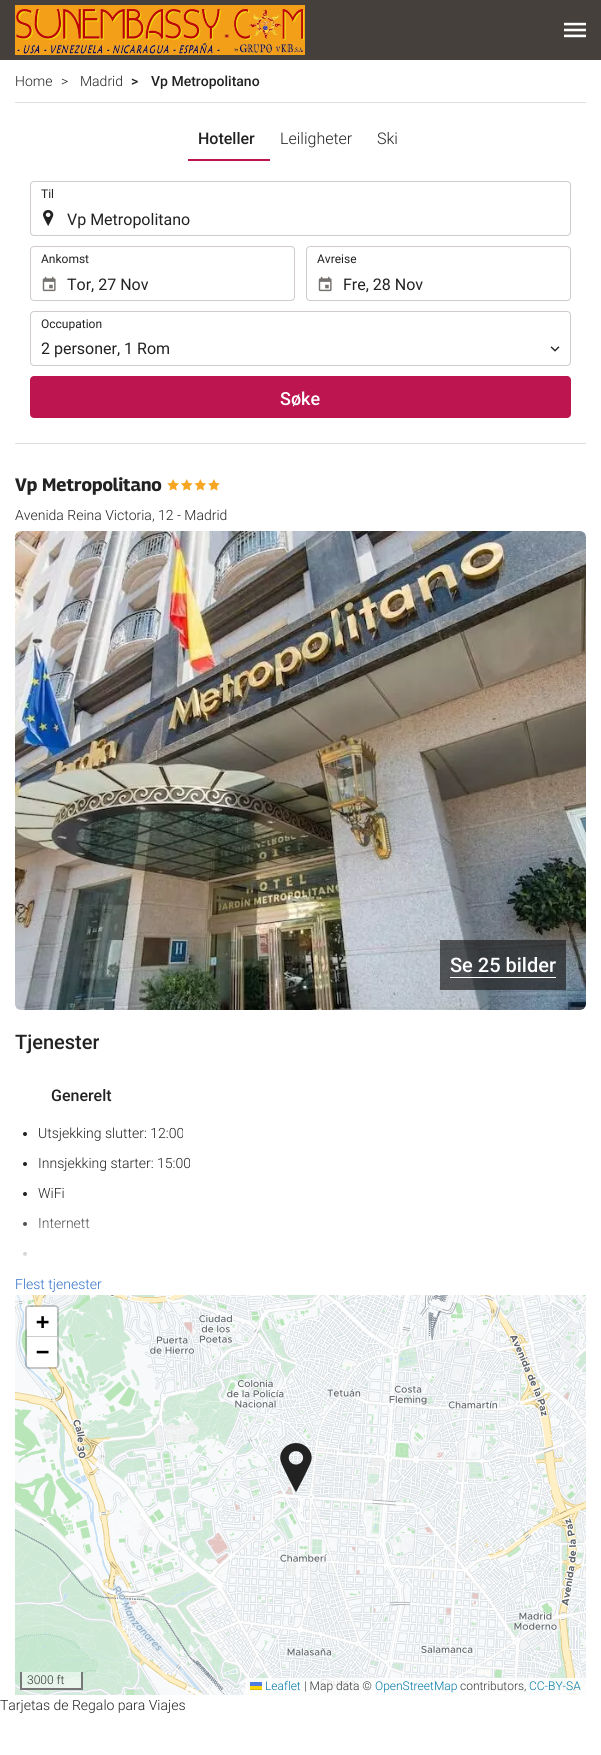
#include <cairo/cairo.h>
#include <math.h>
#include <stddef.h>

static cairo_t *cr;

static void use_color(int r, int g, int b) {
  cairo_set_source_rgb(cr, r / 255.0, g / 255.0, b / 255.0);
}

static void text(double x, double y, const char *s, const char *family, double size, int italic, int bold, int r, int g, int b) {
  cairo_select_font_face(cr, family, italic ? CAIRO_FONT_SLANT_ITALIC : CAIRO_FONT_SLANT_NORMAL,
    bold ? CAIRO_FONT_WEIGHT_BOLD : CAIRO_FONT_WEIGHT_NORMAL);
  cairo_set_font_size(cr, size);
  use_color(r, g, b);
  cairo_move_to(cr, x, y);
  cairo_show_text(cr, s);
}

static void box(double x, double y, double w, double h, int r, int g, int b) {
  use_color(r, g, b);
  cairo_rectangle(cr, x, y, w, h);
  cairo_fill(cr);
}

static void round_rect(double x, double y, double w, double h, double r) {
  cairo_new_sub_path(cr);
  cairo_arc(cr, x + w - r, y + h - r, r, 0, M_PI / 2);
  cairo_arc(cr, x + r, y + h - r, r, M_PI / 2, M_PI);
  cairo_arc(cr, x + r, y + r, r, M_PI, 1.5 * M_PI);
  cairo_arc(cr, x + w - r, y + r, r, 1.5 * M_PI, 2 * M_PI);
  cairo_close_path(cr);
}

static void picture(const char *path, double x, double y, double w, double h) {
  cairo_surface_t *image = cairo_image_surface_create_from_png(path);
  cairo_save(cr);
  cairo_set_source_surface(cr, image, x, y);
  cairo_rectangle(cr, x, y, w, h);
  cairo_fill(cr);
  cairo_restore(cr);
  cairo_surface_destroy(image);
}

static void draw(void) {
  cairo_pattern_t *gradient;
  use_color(255, 255, 255);
  cairo_paint(cr);
  box(0, 0, 601, 60, 70, 64, 60);
  picture("img_01.png", 15, 5, 290, 50);
  picture("img_02.png", 564, 22, 22, 16);
  box(15, 102, 571, 1, 223, 223, 223);
  box(15, 443, 571, 1, 223, 223, 223);
  box(188, 159, 82, 2, 189, 21, 80);
  picture("img_03.png", 43, 210, 11, 16);
  round_rect(30.5, 181.5, 540, 54, 3.5);
  use_color(208, 203, 201);
  cairo_set_line_width(cr, 1);
  cairo_stroke(cr);
  picture("img_04.png", 42, 276, 14, 16);
  round_rect(30.5, 246.5, 264, 54, 3.5);
  cairo_stroke(cr);
  picture("img_04.png", 318, 276, 14, 16);
  round_rect(306.5, 246.5, 264, 54, 3.5);
  cairo_stroke(cr);
  round_rect(30.5, 311.5, 540, 54, 3.5);
  cairo_stroke(cr);
  picture("img_05.png", 550, 346, 10, 6);
  use_color(189, 21, 80);
  round_rect(30, 376, 541, 42, 4);
  cairo_fill(cr);
  picture("img_06.png", 167, 479, 53, 12);
  picture("img_07.png", 15, 531, 571, 479);
  cairo_set_source_rgba(cr, 0.133, 0.133, 0.133, 0.7);
  cairo_rectangle(cr, 440, 940, 126, 50);
  cairo_fill(cr);
  box(450, 977, 106, 1, 255, 255, 255);
  use_color(34, 34, 34);
  cairo_arc(cr, 25, 1134, 2, 0, 2 * M_PI);
  cairo_fill(cr);
  cairo_arc(cr, 25, 1164, 2, 0, 2 * M_PI);
  cairo_fill(cr);
  cairo_arc(cr, 25, 1194, 2, 0, 2 * M_PI);
  cairo_fill(cr);
  cairo_arc(cr, 25, 1224, 2, 0, 2 * M_PI);
  cairo_fill(cr);
  cairo_arc(cr, 25, 1254, 2, 0, 2 * M_PI);
  cairo_fill(cr);
  picture("img_08.png", 15, 1295, 113, 202);
  picture("img_09.png", 128, 1295, 256, 202);
  picture("img_10.png", 384, 1295, 202, 202);
  picture("img_11.png", 15, 1497, 113, 198);
  picture("img_12.png", 128, 1497, 256, 198);
  picture("img_13.png", 384, 1497, 202, 198);
  picture("img_14.png", 280, 1443, 32, 49);
  round_rect(26, 1306, 32, 62, 3);
  cairo_set_source_rgba(cr, 0, 0, 0, 0.2);
  cairo_set_line_width(cr, 2);
  cairo_stroke(cr);
  use_color(255, 255, 255);
  cairo_new_path(cr);
  cairo_move_to(cr, 29, 1307);
  cairo_line_to(cr, 55, 1307);
  cairo_curve_to(cr, 56, 1307, 57, 1308, 57, 1309);
  cairo_line_to(cr, 57, 1337);
  cairo_line_to(cr, 27, 1337);
  cairo_line_to(cr, 27, 1309);
  cairo_curve_to(cr, 27, 1308, 28, 1307, 29, 1307);
  cairo_close_path(cr);
  cairo_fill(cr);
  box(27, 1336, 30, 1, 204, 204, 204);
  use_color(255, 255, 255);
  cairo_new_path(cr);
  cairo_move_to(cr, 27, 1337);
  cairo_line_to(cr, 57, 1337);
  cairo_line_to(cr, 57, 1365);
  cairo_curve_to(cr, 57, 1366, 56, 1367, 55, 1367);
  cairo_line_to(cr, 29, 1367);
  cairo_curve_to(cr, 28, 1367, 27, 1366, 27, 1365);
  cairo_close_path(cr);
  cairo_fill(cr);
  cairo_set_source_rgba(cr, 1, 1, 1, 0.5);
  cairo_rectangle(cr, 22, 1672, 59, 16);
  cairo_fill(cr);
  box(81, 1672, 2, 18, 119, 119, 119);
  box(20, 1688, 63, 2, 119, 119, 119);
  box(20, 1672, 2, 18, 119, 119, 119);
  cairo_set_source_rgba(cr, 1, 1, 1, 0.8);
  cairo_rectangle(cr, 245, 1678, 341, 17);
  cairo_fill(cr);
  box(250, 1682, 12, 4, 76, 123, 225);
  box(250, 1686, 12, 3, 255, 213, 0);
  box(250, 1689, 12, 1, 224, 188, 0);
  text(15, 86, "Home", "Roboto Light", 14, 0, 0, 34, 34, 34);
  text(61, 86, ">", "Roboto Light", 14, 0, 0, 34, 34, 34);
  text(80, 86, "Madrid", "Roboto Light", 14, 0, 0, 34, 34, 34);
  text(131, 86, ">", "Roboto Medium", 14, 0, 0, 34, 34, 34);
  text(151, 86, "Vp Metropolitano", "Roboto Medium", 14, 0, 0, 34, 34, 34);
  text(198, 144, "Hoteller", "Roboto Medium", 16, 0, 0, 34, 34, 34);
  text(280, 144, "Leiligheter", "Roboto Light", 16, 0, 0, 34, 34, 34);
  text(377, 144, "Ski", "Roboto Light", 16, 0, 0, 34, 34, 34);
  text(41, 198, "Til", "Roboto", 12, 0, 0, 34, 34, 34);
  text(67, 225, "Vp Metropolitano", "Roboto", 16, 0, 0, 34, 34, 34);
  text(41, 263, "Ankomst", "Roboto", 12, 0, 0, 34, 34, 34);
  text(67, 290, "Tor, 27 Nov", "Roboto", 16, 0, 0, 34, 34, 34);
  text(317, 263, "Avreise", "Roboto", 12, 0, 0, 34, 34, 34);
  text(343, 290, "Fre, 28 Nov", "Roboto", 16, 0, 0, 34, 34, 34);
  text(41, 328, "Occupation", "Roboto", 12, 0, 0, 34, 34, 34);
  text(41, 354, "2 personer, 1 Rom", "Roboto", 16, 0, 0, 34, 34, 34);
  text(280, 405, "Søke", "Roboto Medium", 18, 0, 0, 255, 255, 255);
  text(15, 491, "Vp Metropolitano", "Georama", 18, 0, 1, 34, 34, 34);
  text(15, 520, "Avenida Reina Victoria, 12 - Madrid", "Roboto Light", 14, 0, 0, 34, 34, 34);
  text(450, 972, "Se 25 bilder", "Roboto Medium", 20, 0, 0, 255, 255, 255);
  text(15, 1049, "Tjenester", "Roboto Medium", 20, 0, 0, 34, 34, 34);
  text(51, 1101, "Generelt", "Roboto Medium", 16, 0, 0, 34, 34, 34);
  text(38, 1138, "Utsjekking slutter: 12:00", "Roboto Light", 14, 0, 0, 34, 34, 34);
  text(38, 1168, "Innsjekking starter: 15:00", "Roboto Light", 14, 0, 0, 34, 34, 34);
  text(38, 1198, "WiFi", "Roboto Light", 14, 0, 0, 34, 34, 34);
  text(38, 1228, "Internett", "Roboto Light", 14, 0, 0, 34, 34, 34);
  gradient = cairo_pattern_create_linear(301, 1213, 301, 1263);
  cairo_pattern_add_color_stop_rgba(gradient, 0, 1, 1, 1, 0);
  cairo_pattern_add_color_stop_rgba(gradient, 1, 1, 1, 1, 1);
  cairo_set_source(cr, gradient);
  cairo_pattern_destroy(gradient);
  cairo_rectangle(cr, 23, 1218, 67, 38);
  cairo_fill(cr);
  text(15, 1289, "Flest tjenester", "Roboto Light", 14, 0, 0, 49, 113, 201);
  text(36, 1329, "+", "DejaVu Sans Mono", 22, 0, 1, 0, 0, 0);
  text(36, 1359, "−", "DejaVu Sans Mono", 22, 0, 1, 0, 0, 0);
  text(27, 1684, "3000 ft", "Roboto Light", 12, 0, 0, 51, 51, 51);
  text(265, 1690, "Leaflet", "Roboto Light", 12, 0, 0, 0, 120, 168);
  text(304, 1690, "| Map data ©", "Roboto Light", 12, 0, 0, 51, 51, 51);
  text(375, 1690, "OpenStreetMap", "Roboto Light", 12, 0, 0, 0, 120, 168);
  text(460, 1690, "contributors,", "Roboto Light", 12, 0, 0, 51, 51, 51);
  text(529, 1690, "CC-BY-SA", "Roboto Light", 12, 0, 0, 0, 120, 168);
  text(0, 1710, "Tarjetas de Regalo para Viajes", "Roboto Light", 14, 0, 0, 34, 34, 34);
}

int main(void) {
  cairo_surface_t *surface = cairo_image_surface_create(CAIRO_FORMAT_RGB24, 601, 1755);
  cr = cairo_create(surface);
  cairo_font_options_t *options = cairo_font_options_create();
  cairo_font_options_set_hint_metrics(options, CAIRO_HINT_METRICS_OFF);
  cairo_font_options_set_hint_style(options, CAIRO_HINT_STYLE_NONE);
  cairo_set_font_options(cr, options);
  cairo_set_miter_limit(cr, 4);
  draw();
  cairo_surface_write_to_png(surface, "out.png");
  cairo_font_options_destroy(options);
  cairo_destroy(cr);
  cairo_surface_destroy(surface);
  return 0;
}
